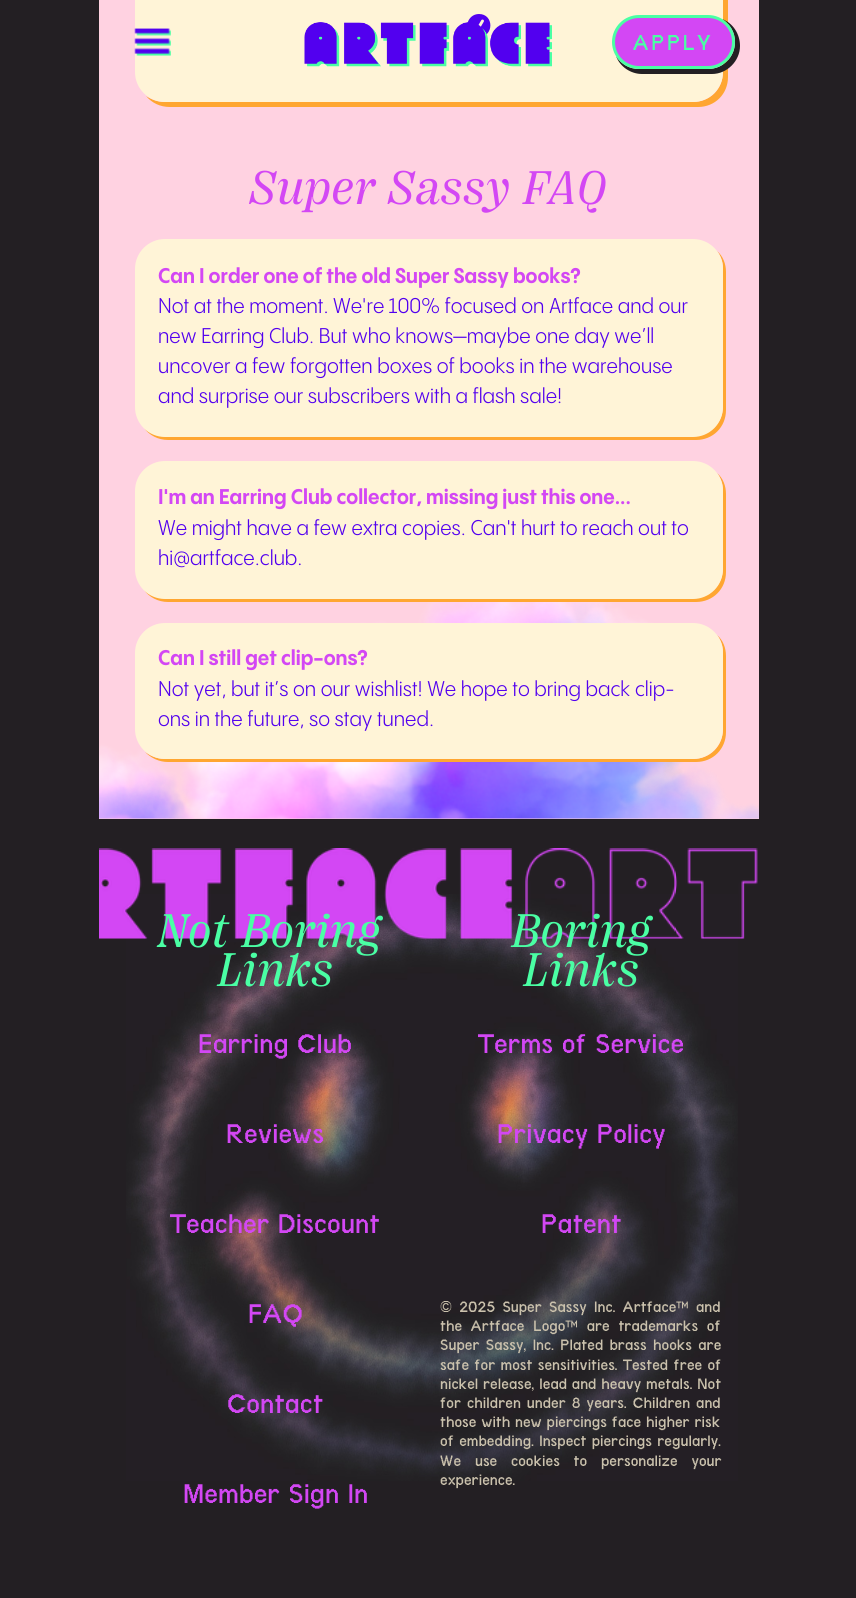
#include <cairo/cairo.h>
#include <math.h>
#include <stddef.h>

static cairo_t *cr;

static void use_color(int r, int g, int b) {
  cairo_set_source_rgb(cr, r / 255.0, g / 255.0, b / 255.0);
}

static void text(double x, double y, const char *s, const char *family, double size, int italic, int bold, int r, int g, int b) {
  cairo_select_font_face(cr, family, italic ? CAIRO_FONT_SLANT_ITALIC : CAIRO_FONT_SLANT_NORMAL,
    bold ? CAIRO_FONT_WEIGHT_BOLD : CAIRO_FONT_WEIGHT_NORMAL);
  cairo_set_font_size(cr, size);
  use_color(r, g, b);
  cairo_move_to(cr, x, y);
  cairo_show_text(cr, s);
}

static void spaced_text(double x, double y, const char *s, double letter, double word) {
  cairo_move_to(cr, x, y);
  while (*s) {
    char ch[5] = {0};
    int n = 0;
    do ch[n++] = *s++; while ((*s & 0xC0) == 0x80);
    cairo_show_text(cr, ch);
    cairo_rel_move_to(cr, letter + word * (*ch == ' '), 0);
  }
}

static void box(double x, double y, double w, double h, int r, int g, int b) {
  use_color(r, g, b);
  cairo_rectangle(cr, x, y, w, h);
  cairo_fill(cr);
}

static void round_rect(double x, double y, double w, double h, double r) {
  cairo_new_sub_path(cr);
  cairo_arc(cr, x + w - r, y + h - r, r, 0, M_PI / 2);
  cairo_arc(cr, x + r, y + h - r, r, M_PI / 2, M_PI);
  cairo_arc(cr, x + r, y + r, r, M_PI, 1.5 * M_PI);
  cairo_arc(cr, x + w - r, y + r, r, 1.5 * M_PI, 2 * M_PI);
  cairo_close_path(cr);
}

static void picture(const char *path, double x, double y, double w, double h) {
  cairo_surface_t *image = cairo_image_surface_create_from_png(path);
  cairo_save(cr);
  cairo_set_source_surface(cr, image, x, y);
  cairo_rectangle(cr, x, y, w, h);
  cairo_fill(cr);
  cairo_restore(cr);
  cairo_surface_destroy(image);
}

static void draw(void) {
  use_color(35, 31, 35);
  cairo_paint(cr);
  box(99, 0, 660, 819, 255, 210, 225);
  use_color(255, 166, 49);
  cairo_new_path(cr);
  cairo_move_to(cr, 146, 96);
  cairo_curve_to(cr, 152, 103, 160, 107, 170, 107);
  cairo_line_to(cr, 698, 107);
  cairo_curve_to(cr, 715, 107, 728, 94, 728, 77);
  cairo_line_to(cr, 728, -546);
  cairo_curve_to(cr, 728, -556, 723, -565, 715, -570);
  cairo_curve_to(cr, 720, -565, 723, -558, 723, -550);
  cairo_line_to(cr, 723, 72);
  cairo_curve_to(cr, 723, 89, 710, 102, 693, 102);
  cairo_line_to(cr, 165, 102);
  cairo_curve_to(cr, 158, 102, 152, 100, 146, 96);
  cairo_close_path(cr);
  cairo_fill(cr);
  use_color(255, 244, 215);
  round_rect(135, -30, 588, 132, 30);
  cairo_fill(cr);
  picture("img_01.png", 134, 28, 37, 28);
  use_color(82, 0, 239);
  cairo_new_path(cr);
  cairo_move_to(cr, 479, 14);
  cairo_curve_to(cr, 467, 14, 462.5, 30.5, 473, 36);
  cairo_curve_to(cr, 474.5, 37, 476.5, 37.5, 478.5, 37.5);
  cairo_curve_to(cr, 494.5, 36.5, 494, 14, 479, 14);
  cairo_close_path(cr);
  cairo_fill(cr);
  cairo_new_path(cr);
  cairo_move_to(cr, 474.5, 26);
  cairo_line_to(cr, 477.5, 29.5);
  cairo_line_to(cr, 482.5, 21);
  use_color(255, 244, 215);
  cairo_set_line_width(cr, 2.9);
  cairo_set_line_cap(cr, CAIRO_LINE_CAP_ROUND);
  cairo_set_line_join(cr, CAIRO_LINE_JOIN_ROUND);
  cairo_stroke(cr);
  picture("img_02.png", 304, 22, 248, 45);
  use_color(35, 31, 35);
  cairo_new_path(cr);
  cairo_move_to(cr, 616, 56);
  cairo_curve_to(cr, 620, 67, 631, 74, 642, 74);
  cairo_line_to(cr, 712, 74);
  cairo_curve_to(cr, 727, 74, 740, 61, 740, 46);
  cairo_curve_to(cr, 740, 34, 733, 23, 722, 19);
  cairo_curve_to(cr, 730, 24, 735, 32, 735, 42);
  cairo_curve_to(cr, 735, 57, 723, 69, 708, 69);
  cairo_line_to(cr, 639, 69);
  cairo_curve_to(cr, 629, 69, 621, 64, 616, 56);
  cairo_close_path(cr);
  cairo_fill(cr);
  use_color(211, 71, 244);
  round_rect(613.5, 16.5, 120, 51, 25.5);
  cairo_fill_preserve(cr);
  use_color(74, 255, 164);
  cairo_set_line_width(cr, 3);
  cairo_set_line_cap(cr, CAIRO_LINE_CAP_BUTT);
  cairo_set_line_join(cr, CAIRO_LINE_JOIN_MITER);
  cairo_stroke(cr);
  picture("img_03.png", 99, 602, 660, 217);
  use_color(255, 166, 49);
  cairo_new_path(cr);
  cairo_move_to(cr, 144, 428);
  cairo_curve_to(cr, 149, 435, 158, 440, 168, 440);
  cairo_line_to(cr, 696, 440);
  cairo_curve_to(cr, 713, 440, 726, 427, 726, 410);
  cairo_line_to(cr, 726, 272);
  cairo_curve_to(cr, 726, 264, 723, 256, 717, 251);
  cairo_curve_to(cr, 721, 256, 723, 262, 723, 268);
  cairo_line_to(cr, 723, 406);
  cairo_curve_to(cr, 723, 423, 710, 436, 693, 436);
  cairo_line_to(cr, 165, 436);
  cairo_curve_to(cr, 157, 436, 149, 433, 144, 428);
  cairo_close_path(cr);
  cairo_fill(cr);
  use_color(255, 244, 215);
  round_rect(135, 239, 588, 198, 30);
  cairo_fill(cr);
  use_color(255, 166, 49);
  cairo_new_path(cr);
  cairo_move_to(cr, 144, 590);
  cairo_curve_to(cr, 149, 597, 158, 602, 168, 602);
  cairo_line_to(cr, 696, 602);
  cairo_curve_to(cr, 713, 602, 726, 589, 726, 572);
  cairo_line_to(cr, 726, 494);
  cairo_curve_to(cr, 726, 486, 723, 478, 717, 473);
  cairo_curve_to(cr, 721, 478, 723, 484, 723, 490);
  cairo_line_to(cr, 723, 568);
  cairo_curve_to(cr, 723, 585, 710, 598, 693, 598);
  cairo_line_to(cr, 165, 598);
  cairo_curve_to(cr, 157, 598, 149, 595, 144, 590);
  cairo_close_path(cr);
  cairo_fill(cr);
  use_color(255, 244, 215);
  round_rect(135, 461, 588, 138, 30);
  cairo_fill(cr);
  use_color(255, 166, 49);
  cairo_new_path(cr);
  cairo_move_to(cr, 145, 752);
  cairo_curve_to(cr, 151, 758, 159, 762, 168, 762);
  cairo_line_to(cr, 696, 762);
  cairo_curve_to(cr, 713, 762, 726, 749, 726, 732);
  cairo_line_to(cr, 726, 656);
  cairo_curve_to(cr, 726, 648, 723, 640, 717, 635);
  cairo_curve_to(cr, 721, 640, 723, 646, 723, 652);
  cairo_line_to(cr, 723, 729);
  cairo_curve_to(cr, 723, 746, 710, 759, 693, 759);
  cairo_line_to(cr, 165, 759);
  cairo_curve_to(cr, 157, 759, 151, 756, 145, 752);
  cairo_close_path(cr);
  cairo_fill(cr);
  use_color(255, 244, 215);
  round_rect(135, 623, 588, 136, 30);
  cairo_fill(cr);
  picture("img_05.png", 126, 894, 612, 587);
  picture("img_04.png", 99, 848, 659, 91);
  cairo_select_font_face(cr, "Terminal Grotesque", CAIRO_FONT_SLANT_NORMAL, CAIRO_FONT_WEIGHT_NORMAL);
  cairo_set_font_size(cr, 24);
  use_color(74, 255, 164);
  spaced_text(633, 50, "APPLY", 2.5, 0);
  text(249, 204, "Super Sassy FAQ", "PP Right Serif", 48, 1, 0, 211, 71, 244);
  text(158, 283, "Can I order one of the old Super Sassy books?", "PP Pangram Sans", 21, 0, 1, 211, 71, 244);
  text(158, 313, "Not at the moment. We're 100% focused on Artface and our", "PP Pangram Sans", 21, 0, 0, 82, 0, 239);
  text(158, 343, "new Earring Club. But who knows—maybe one day we’ll", "PP Pangram Sans", 21, 0, 0, 82, 0, 239);
  text(158, 373, "uncover a few forgotten boxes of books in the warehouse", "PP Pangram Sans", 21, 0, 0, 82, 0, 239);
  text(158, 403, "and surprise our subscribers with a flash sale!", "PP Pangram Sans", 21, 0, 0, 82, 0, 239);
  text(158, 504, "I'm an Earring Club collector, missing just this one...", "PP Pangram Sans", 21, 0, 1, 211, 71, 244);
  text(158, 535, "We might have a few extra copies. Can't hurt to reach out to", "PP Pangram Sans", 21, 0, 0, 82, 0, 239);
  text(158, 565, "hi@artface.club.", "PP Pangram Sans", 21, 0, 0, 82, 0, 239);
  text(158, 665, "Can I still get clip-ons?", "PP Pangram Sans", 21, 0, 1, 211, 71, 244);
  text(158, 696, "Not yet, but it’s on our wishlist! We hope to bring back clip-", "PP Pangram Sans", 21, 0, 0, 82, 0, 239);
  text(158, 726, "ons in the future, so stay tuned.", "PP Pangram Sans", 21, 0, 0, 82, 0, 239);
  text(157, 947, "Not Boring", "PP Right Serif", 48, 1, 0, 74, 255, 164);
  text(217, 986, "Links", "PP Right Serif", 48, 1, 0, 74, 255, 164);
  text(511, 947, "Boring", "PP Right Serif", 48, 1, 0, 74, 255, 164);
  text(523, 986, "Links", "PP Right Serif", 48, 1, 0, 74, 255, 164);
  text(198, 1053, "Earring Club", "Terminal Grotesque", 30, 0, 0, 211, 71, 244);
  text(226, 1143, "Reviews", "Terminal Grotesque", 30, 0, 0, 211, 71, 244);
  text(170, 1233, "Teacher Discount", "Terminal Grotesque", 30, 0, 0, 211, 71, 244);
  text(248, 1323, "FAQ", "Terminal Grotesque", 30, 0, 0, 211, 71, 244);
  text(227, 1413, "Contact", "Terminal Grotesque", 30, 0, 0, 211, 71, 244);
  text(183, 1503, "Member Sign In", "Terminal Grotesque", 30, 0, 0, 211, 71, 244);
  text(478, 1053, "Terms of Service", "Terminal Grotesque", 30, 0, 0, 211, 71, 244);
  text(497, 1143, "Privacy Policy", "Terminal Grotesque", 30, 0, 0, 211, 71, 244);
  text(541, 1233, "Patent", "Terminal Grotesque", 30, 0, 0, 211, 71, 244);
  cairo_set_font_size(cr, 16.75);
  use_color(203, 194, 173);
  spaced_text(440, 1312, "© 2025 Super Sassy Inc. Artface™ and", 0, 2.5);
  spaced_text(440, 1331, "the Artface Logo™ are trademarks of", 0, 4);
  spaced_text(440, 1350, "Super Sassy, Inc. Plated brass hooks are", 0, 1.5);
  spaced_text(440, 1370, "safe for most sensitivities. Tested free of", 0, 0.5);
  text(440, 1389, "nickel release, lead and heavy metals. Not", "Terminal Grotesque", 16.75, 0, 0, 203, 194, 173);
  spaced_text(440, 1408, "for children under 8 years. Children and", 0, 1.25);
  text(440, 1427, "those with new piercings face higher risk", "Terminal Grotesque", 16.75, 0, 0, 203, 194, 173);
  spaced_text(440, 1446, "of embedding. Inspect piercings regularly.", 0, 0.5);
  spaced_text(440, 1466, "We use cookies to personalize your", 0, 9);
  text(440, 1485, "experience.", "Terminal Grotesque", 16.75, 0, 0, 203, 194, 173);
}

int main(void) {
  cairo_surface_t *surface = cairo_image_surface_create(CAIRO_FORMAT_RGB24, 856, 1598);
  cr = cairo_create(surface);
  cairo_font_options_t *options = cairo_font_options_create();
  cairo_font_options_set_hint_metrics(options, CAIRO_HINT_METRICS_OFF);
  cairo_font_options_set_hint_style(options, CAIRO_HINT_STYLE_NONE);
  cairo_set_font_options(cr, options);
  cairo_set_miter_limit(cr, 4);
  draw();
  cairo_surface_write_to_png(surface, "out.png");
  cairo_font_options_destroy(options);
  cairo_destroy(cr);
  cairo_surface_destroy(surface);
  return 0;
}
